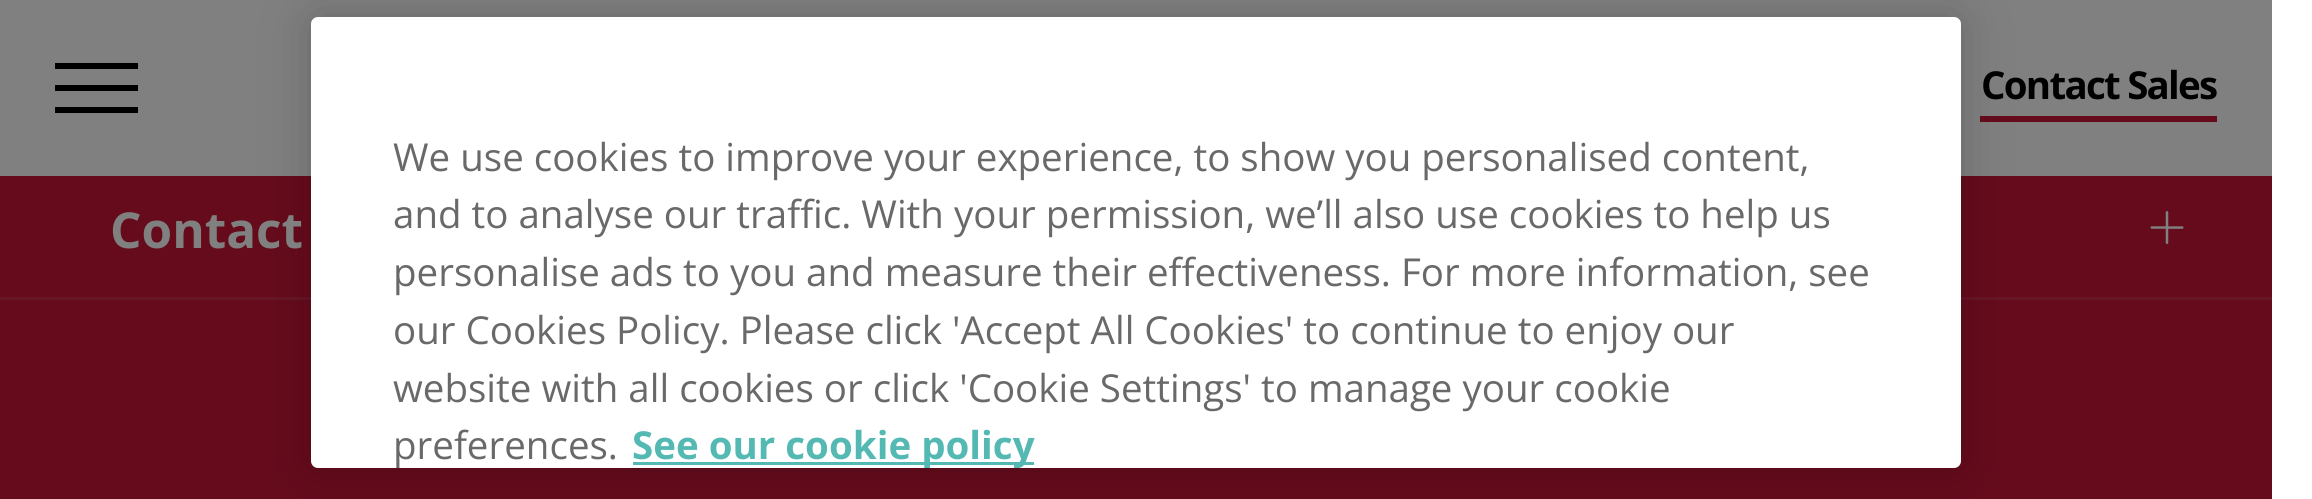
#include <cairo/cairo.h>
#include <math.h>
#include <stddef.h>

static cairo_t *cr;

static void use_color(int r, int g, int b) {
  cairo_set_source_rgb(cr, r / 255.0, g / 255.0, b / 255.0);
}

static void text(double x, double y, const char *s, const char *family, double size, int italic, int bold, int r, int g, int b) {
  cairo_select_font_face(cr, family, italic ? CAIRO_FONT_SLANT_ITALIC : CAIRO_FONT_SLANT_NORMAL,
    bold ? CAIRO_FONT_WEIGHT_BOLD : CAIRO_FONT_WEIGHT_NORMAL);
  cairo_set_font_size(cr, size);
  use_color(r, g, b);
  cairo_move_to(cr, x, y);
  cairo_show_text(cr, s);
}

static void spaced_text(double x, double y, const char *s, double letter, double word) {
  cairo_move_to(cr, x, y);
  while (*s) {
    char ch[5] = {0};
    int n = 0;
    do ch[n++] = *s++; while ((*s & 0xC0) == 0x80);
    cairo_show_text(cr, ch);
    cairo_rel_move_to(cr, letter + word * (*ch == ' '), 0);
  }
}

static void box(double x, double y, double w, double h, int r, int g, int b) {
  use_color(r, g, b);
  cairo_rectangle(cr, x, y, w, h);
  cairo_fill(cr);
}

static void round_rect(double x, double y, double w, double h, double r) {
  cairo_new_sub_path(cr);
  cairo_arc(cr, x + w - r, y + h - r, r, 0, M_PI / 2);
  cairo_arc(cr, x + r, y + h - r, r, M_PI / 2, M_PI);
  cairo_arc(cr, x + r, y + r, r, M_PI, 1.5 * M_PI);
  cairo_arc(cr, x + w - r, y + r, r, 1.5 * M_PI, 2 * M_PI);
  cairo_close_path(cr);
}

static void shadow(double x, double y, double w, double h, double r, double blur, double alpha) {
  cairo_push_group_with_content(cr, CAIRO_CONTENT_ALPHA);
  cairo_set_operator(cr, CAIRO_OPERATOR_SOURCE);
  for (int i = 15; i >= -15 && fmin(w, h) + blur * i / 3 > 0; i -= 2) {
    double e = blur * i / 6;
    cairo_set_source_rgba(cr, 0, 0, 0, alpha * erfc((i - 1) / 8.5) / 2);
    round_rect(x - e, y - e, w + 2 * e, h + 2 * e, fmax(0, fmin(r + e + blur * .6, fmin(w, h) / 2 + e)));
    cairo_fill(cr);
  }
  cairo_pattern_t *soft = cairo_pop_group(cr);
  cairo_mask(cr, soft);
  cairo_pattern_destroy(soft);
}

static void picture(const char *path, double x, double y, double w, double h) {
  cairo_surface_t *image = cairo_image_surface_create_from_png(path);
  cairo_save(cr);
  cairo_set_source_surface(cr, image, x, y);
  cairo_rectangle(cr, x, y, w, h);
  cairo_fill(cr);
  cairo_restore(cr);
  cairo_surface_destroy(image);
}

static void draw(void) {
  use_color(255, 255, 255);
  cairo_paint(cr);
  box(0, 0, 2272, 176, 128, 128, 128);
  box(55, 63, 83, 6, 0, 0, 0);
  box(55, 85, 83, 6, 0, 0, 0);
  box(55, 107, 83, 6, 0, 0, 0);
  box(1980, 116, 237, 6, 101, 11, 28);
  box(0, 176, 2272, 323, 101, 11, 28);
  box(0, 297, 2272, 3, 103, 22, 38);
  picture("img_01.png", 2150, 211, 34, 33);
  use_color(0, 0, 0);
  shadow(311, 17, 1650, 451, 7, 25, 0.2);
  use_color(255, 255, 255);
  round_rect(311, 17, 1650, 451, 7);
  cairo_fill(cr);
  box(633, 462, 401, 3, 84, 185, 179);
  cairo_select_font_face(cr, "Open Sans", CAIRO_FONT_SLANT_NORMAL, CAIRO_FONT_WEIGHT_BOLD);
  cairo_set_font_size(cr, 38.5);
  use_color(0, 0, 0);
  spaced_text(1981, 99, "Contact Sales", -1.75, 0);
  text(110, 248, "Contact", "Open Sans", 49.5, 0, 1, 128, 128, 128);
  text(393, 171, "We use cookies to improve your experience, to show you personalised content,", "Open Sans", 38.5, 0, 0, 105, 105, 105);
  text(393, 228, "and to analyse our traffic. With your permission, we’ll also use cookies to help us", "Open Sans", 38.5, 0, 0, 105, 105, 105);
  text(393, 286, "personalise ads to you and measure their effectiveness. For more information, see", "Open Sans", 38.5, 0, 0, 105, 105, 105);
  text(393, 344, "our Cookies Policy. Please click 'Accept All Cookies' to continue to enjoy our", "Open Sans", 38.5, 0, 0, 105, 105, 105);
  text(393, 402, "website with all cookies or click 'Cookie Settings' to manage your cookie", "Open Sans", 38.5, 0, 0, 105, 105, 105);
  cairo_save(cr);
  round_rect(311, 17, 1650, 451, 7);
  cairo_clip(cr);
  text(393, 459, "preferences.", "Open Sans", 38.5, 0, 0, 105, 105, 105);
  text(632, 459, "See our cookie policy", "Open Sans", 38.5, 0, 1, 84, 185, 179);
  cairo_restore(cr);
}

int main(void) {
  cairo_surface_t *surface = cairo_image_surface_create(CAIRO_FORMAT_RGB24, 2312, 499);
  cr = cairo_create(surface);
  cairo_font_options_t *options = cairo_font_options_create();
  cairo_font_options_set_hint_metrics(options, CAIRO_HINT_METRICS_OFF);
  cairo_font_options_set_hint_style(options, CAIRO_HINT_STYLE_NONE);
  cairo_set_font_options(cr, options);
  cairo_set_miter_limit(cr, 4);
  draw();
  cairo_surface_write_to_png(surface, "out.png");
  cairo_font_options_destroy(options);
  cairo_destroy(cr);
  cairo_surface_destroy(surface);
  return 0;
}
